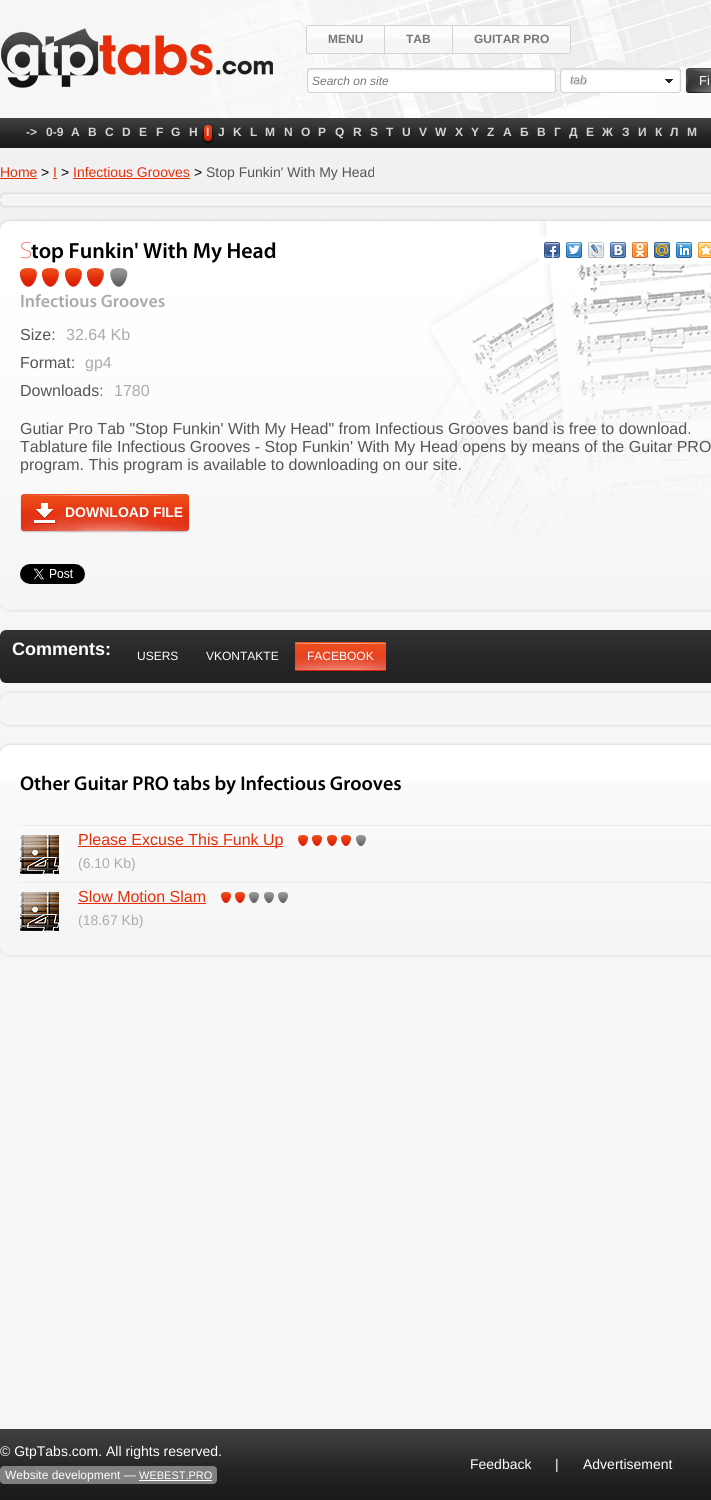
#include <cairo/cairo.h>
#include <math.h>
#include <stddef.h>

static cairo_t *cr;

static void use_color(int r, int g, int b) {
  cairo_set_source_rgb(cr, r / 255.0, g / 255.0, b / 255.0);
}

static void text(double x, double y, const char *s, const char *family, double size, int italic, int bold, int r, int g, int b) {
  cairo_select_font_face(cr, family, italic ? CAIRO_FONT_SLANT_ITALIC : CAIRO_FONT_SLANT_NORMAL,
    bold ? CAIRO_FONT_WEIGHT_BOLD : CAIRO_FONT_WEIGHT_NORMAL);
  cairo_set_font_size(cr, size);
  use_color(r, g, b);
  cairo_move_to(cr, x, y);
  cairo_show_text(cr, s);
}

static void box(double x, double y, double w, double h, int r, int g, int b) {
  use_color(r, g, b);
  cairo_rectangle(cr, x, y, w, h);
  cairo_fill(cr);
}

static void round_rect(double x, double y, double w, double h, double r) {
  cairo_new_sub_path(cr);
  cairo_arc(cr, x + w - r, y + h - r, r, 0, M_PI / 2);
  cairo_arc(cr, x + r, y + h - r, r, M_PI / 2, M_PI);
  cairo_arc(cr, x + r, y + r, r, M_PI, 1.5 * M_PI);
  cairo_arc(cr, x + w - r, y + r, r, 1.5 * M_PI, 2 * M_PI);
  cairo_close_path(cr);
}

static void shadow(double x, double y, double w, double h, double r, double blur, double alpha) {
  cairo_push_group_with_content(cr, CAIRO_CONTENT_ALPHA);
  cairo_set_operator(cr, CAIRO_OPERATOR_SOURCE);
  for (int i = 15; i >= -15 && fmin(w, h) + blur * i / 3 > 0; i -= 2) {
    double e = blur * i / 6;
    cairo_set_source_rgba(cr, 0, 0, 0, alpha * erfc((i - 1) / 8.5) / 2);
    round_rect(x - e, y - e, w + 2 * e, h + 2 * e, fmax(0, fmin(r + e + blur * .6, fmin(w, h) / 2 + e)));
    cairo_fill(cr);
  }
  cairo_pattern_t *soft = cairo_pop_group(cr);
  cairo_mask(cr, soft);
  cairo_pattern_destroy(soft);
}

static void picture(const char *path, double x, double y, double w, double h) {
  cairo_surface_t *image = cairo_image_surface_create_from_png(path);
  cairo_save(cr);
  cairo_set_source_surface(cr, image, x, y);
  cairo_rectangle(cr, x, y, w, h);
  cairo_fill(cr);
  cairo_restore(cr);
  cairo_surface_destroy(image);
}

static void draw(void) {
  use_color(246, 246, 246);
  cairo_paint(cr);
  picture("img_01.png", 0, 148, 711, 83);
  picture("img_02.png", 199, 0, 512, 118);
  picture("img_03.png", 1, 28, 272, 60);
  use_color(245, 245, 245);
  cairo_new_path(cr);
  cairo_move_to(cr, 308, 25);
  cairo_line_to(cr, 385, 25);
  cairo_line_to(cr, 385, 54);
  cairo_line_to(cr, 308, 54);
  cairo_curve_to(cr, 307, 54, 306, 53, 306, 52);
  cairo_line_to(cr, 306, 27);
  cairo_curve_to(cr, 306, 26, 307, 25, 308, 25);
  cairo_close_path(cr);
  cairo_fill(cr);
  box(306, 26, 78, 13, 251, 251, 251);
  cairo_new_path(cr);
  cairo_move_to(cr, 308, 25.5);
  cairo_line_to(cr, 384.5, 25.5);
  cairo_line_to(cr, 384.5, 53.5);
  cairo_line_to(cr, 308, 53.5);
  cairo_curve_to(cr, 307, 53.5, 306.5, 53, 306.5, 52);
  cairo_line_to(cr, 306.5, 27);
  cairo_curve_to(cr, 306.5, 26, 307, 25.5, 308, 25.5);
  cairo_close_path(cr);
  use_color(212, 212, 212);
  cairo_set_line_width(cr, 1);
  cairo_stroke(cr);
  box(385, 39, 67, 14, 245, 245, 245);
  box(385, 26, 67, 13, 251, 251, 251);
  box(385, 25, 68, 1, 212, 212, 212);
  box(452, 25, 1, 29, 212, 212, 212);
  box(385, 53, 68, 1, 212, 212, 212);
  use_color(245, 245, 245);
  cairo_new_path(cr);
  cairo_move_to(cr, 453, 25);
  cairo_line_to(cr, 569, 25);
  cairo_curve_to(cr, 570, 25, 571, 26, 571, 27);
  cairo_line_to(cr, 571, 52);
  cairo_curve_to(cr, 571, 53, 570, 54, 569, 54);
  cairo_line_to(cr, 453, 54);
  cairo_close_path(cr);
  cairo_fill(cr);
  box(453, 26, 117, 13, 251, 251, 251);
  box(453, 25, 117, 1, 212, 212, 212);
  box(570, 26, 1, 27, 212, 212, 212);
  box(453, 53, 117, 1, 212, 212, 212);
  picture("img_04.png", 307, 68, 249, 25);
  picture("img_05.png", 560, 68, 121, 25);
  picture("img_06.png", 685, 68, 26, 25);
  picture("img_07.png", 0, 118, 711, 30);
  use_color(0, 0, 0);
  shadow(204, 127, 8, 16, 4, 1.5, 0.8);
  picture("img_08.png", 204, 125, 8, 16);
  box(0, 178, 37, 1, 229, 47, 11);
  box(53, 178, 4, 1, 229, 47, 11);
  box(73, 178, 117, 1, 229, 47, 11);
  use_color(0, 0, 0);
  shadow(0, 194, 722, 12, 6, 1.5, 0.2);
  picture("img_09.png", 0, 194, 711, 12);
  shadow(0, 221, 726, 389, 10, 1.5, 0.2);
  use_color(255, 255, 255);
  round_rect(0, 221, 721, 389, 10);
  cairo_fill(cr);
  picture("img_10.png", 0, 221, 711, 389);
  picture("img_11.png", 428, 221, 283, 319);
  picture("img_12.png", 20, 268, 17, 19);
  picture("img_12.png", 42, 268, 17, 19);
  picture("img_12.png", 65, 268, 17, 19);
  picture("img_12.png", 87, 268, 17, 19);
  picture("img_13.png", 110, 268, 18, 19);
  box(539, 237, 172, 27, 255, 255, 255);
  picture("img_14.png", 544, 242, 16, 16);
  picture("img_15.png", 566, 242, 16, 16);
  picture("img_16.png", 588, 242, 16, 16);
  picture("img_17.png", 610, 242, 16, 16);
  picture("img_18.png", 632, 242, 16, 16);
  picture("img_19.png", 654, 242, 16, 16);
  picture("img_20.png", 676, 242, 16, 16);
  picture("img_21.png", 698, 242, 13, 16);
  picture("img_22.png", 20, 494, 170, 39);
  picture("img_23.png", 20, 564, 65, 20);
  picture("img_24.png", 0, 630, 711, 53);
  picture("img_25.png", 295, 642, 91, 29);
  use_color(0, 0, 0);
  shadow(0, 693, 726, 32, 10, 1.5, 0.2);
  use_color(255, 255, 255);
  round_rect(0, 693, 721, 32, 10);
  cairo_fill(cr);
  picture("img_26.png", 0, 693, 711, 32);
  use_color(0, 0, 0);
  shadow(0, 745, 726, 210, 10, 1.5, 0.2);
  use_color(255, 255, 255);
  round_rect(0, 745, 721, 210, 10);
  cairo_fill(cr);
  picture("img_27.png", 0, 783, 711, 172);
  cairo_new_path(cr);
  cairo_move_to(cr, 20, 825.5);
  cairo_line_to(cr, 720, 825.5);
  use_color(221, 221, 221);
  cairo_set_dash(cr, (double[]){1, 1}, 2, 0);
  cairo_stroke(cr);
  picture("img_28.png", 20, 835, 39, 39);
  box(78, 846, 205, 1, 229, 47, 11);
  picture("img_29.png", 298, 835, 10, 11);
  picture("img_29.png", 312, 835, 10, 11);
  picture("img_29.png", 327, 835, 10, 11);
  picture("img_29.png", 341, 835, 10, 11);
  picture("img_30.png", 356, 835, 10, 11);
  cairo_new_path(cr);
  cairo_move_to(cr, 20, 882.5);
  cairo_line_to(cr, 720, 882.5);
  use_color(221, 221, 221);
  cairo_stroke(cr);
  picture("img_28.png", 20, 892, 39, 39);
  box(78, 903, 128, 1, 229, 47, 11);
  picture("img_31.png", 221, 892, 10, 11);
  picture("img_31.png", 235, 892, 10, 11);
  picture("img_32.png", 249, 892, 10, 11);
  picture("img_32.png", 264, 892, 10, 11);
  picture("img_32.png", 278, 892, 10, 11);
  picture("img_33.png", 0, 1429, 711, 71);
  use_color(128, 128, 128);
  round_rect(0, 1466, 217, 18, 4);
  cairo_fill(cr);
  box(139, 1480, 73, 1, 255, 255, 255);
  text(328, 43, "MENU", "Liberation Sans", 12, 0, 1, 119, 119, 119);
  text(406, 43, "TAB", "Liberation Sans", 12, 0, 1, 119, 119, 119);
  text(474, 43, "GUITAR PRO", "Liberation Sans", 12, 0, 1, 119, 119, 119);
  text(312, 85, "Search on site", "Liberation Sans", 12, 1, 0, 119, 119, 119);
  text(570, 84, "tab", "Liberation Sans", 12, 1, 0, 119, 119, 119);
  text(571, 85, "tab", "Liberation Sans", 12, 1, 0, 218, 218, 218);
  text(699, 85, "Fi", "Liberation Sans", 13, 0, 0, 255, 255, 255);
  text(46, 136, "0-9", "Liberation Sans", 12, 0, 1, 212, 212, 212);
  text(71, 136, "A", "Liberation Sans", 12, 0, 1, 212, 212, 212);
  text(88, 136, "B", "Liberation Sans", 12, 0, 1, 212, 212, 212);
  text(105, 136, "C", "Liberation Sans", 12, 0, 1, 212, 212, 212);
  text(122, 136, "D", "Liberation Sans", 12, 0, 1, 212, 212, 212);
  text(139, 136, "E", "Liberation Sans", 12, 0, 1, 212, 212, 212);
  text(156, 136, "F", "Liberation Sans", 12, 0, 1, 212, 212, 212);
  text(171, 136, "G", "Liberation Sans", 12, 0, 1, 212, 212, 212);
  text(189, 136, "H", "Liberation Sans", 12, 0, 1, 212, 212, 212);
  text(26, 136, "->", "Liberation Sans", 12, 0, 1, 212, 212, 212);
  text(206, 136, "I", "Liberation Sans", 12, 0, 1, 212, 212, 212);
  text(218, 136, "J", "Liberation Sans", 12, 0, 1, 212, 212, 212);
  text(233, 136, "K", "Liberation Sans", 12, 0, 1, 212, 212, 212);
  text(250, 136, "L", "Liberation Sans", 12, 0, 1, 212, 212, 212);
  text(265, 136, "M", "Liberation Sans", 12, 0, 1, 212, 212, 212);
  text(284, 136, "N", "Liberation Sans", 12, 0, 1, 212, 212, 212);
  text(301, 136, "O", "Liberation Sans", 12, 0, 1, 212, 212, 212);
  text(318, 136, "P", "Liberation Sans", 12, 0, 1, 212, 212, 212);
  text(335, 136, "Q", "Liberation Sans", 12, 0, 1, 212, 212, 212);
  text(353, 136, "R", "Liberation Sans", 12, 0, 1, 212, 212, 212);
  text(370, 136, "S", "Liberation Sans", 12, 0, 1, 212, 212, 212);
  text(386, 136, "T", "Liberation Sans", 12, 0, 1, 212, 212, 212);
  text(402, 136, "U", "Liberation Sans", 12, 0, 1, 212, 212, 212);
  text(419, 136, "V", "Liberation Sans", 12, 0, 1, 212, 212, 212);
  text(435, 136, "W", "Liberation Sans", 12, 0, 1, 212, 212, 212);
  text(455, 136, "X", "Liberation Sans", 12, 0, 1, 212, 212, 212);
  text(471, 136, "Y", "Liberation Sans", 12, 0, 1, 212, 212, 212);
  text(487, 136, "Z", "Liberation Sans", 12, 0, 1, 212, 212, 212);
  text(503, 136, "А", "Liberation Sans", 12, 0, 1, 212, 212, 212);
  text(520, 136, "Б", "Liberation Sans", 12, 0, 1, 212, 212, 212);
  text(537, 136, "В", "Liberation Sans", 12, 0, 1, 212, 212, 212);
  text(554, 136, "Г", "Liberation Sans", 12, 0, 1, 212, 212, 212);
  text(569, 136, "Д", "Liberation Sans", 12, 0, 1, 212, 212, 212);
  text(586, 136, "Е", "Liberation Sans", 12, 0, 1, 212, 212, 212);
  text(602, 136, "Ж", "Liberation Sans", 12, 0, 1, 212, 212, 212);
  text(622, 136, "З", "Liberation Sans", 12, 0, 1, 212, 212, 212);
  text(638, 136, "И", "Liberation Sans", 12, 0, 1, 212, 212, 212);
  text(655, 136, "К", "Liberation Sans", 12, 0, 1, 212, 212, 212);
  text(670, 136, "Л", "Liberation Sans", 12, 0, 1, 212, 212, 212);
  text(687, 136, "М", "Liberation Sans", 12, 0, 1, 212, 212, 212);
  text(0, 177, "Home", "Liberation Sans", 14, 0, 0, 229, 47, 11);
  text(41, 177, ">", "Liberation Sans", 14, 0, 0, 0, 0, 0);
  text(53, 177, "I", "Liberation Sans", 14, 0, 0, 229, 47, 11);
  text(61, 177, ">", "Liberation Sans", 14, 0, 0, 0, 0, 0);
  text(73, 177, "Infectious Grooves", "Liberation Sans", 14, 0, 0, 229, 47, 11);
  text(194, 177, ">", "Liberation Sans", 14, 0, 0, 0, 0, 0);
  text(206, 177, "Stop Funkin' With My Head", "Liberation Sans", 14, 0, 0, 85, 85, 85);
  text(20, 258, "S", "Noto Sans Thin", 22, 0, 0, 229, 47, 11);
  text(31, 258, "top Funkin' With My Head", "Myriad SemiBold", 22, 0, 0, 0, 0, 0);
  text(20, 307, "Infectious Grooves", "Myriad SemiBold", 18, 0, 0, 172, 171, 171);
  text(20, 340, "Size:", "Liberation Sans", 16, 0, 0, 85, 85, 85);
  text(66, 340, "32.64 Kb", "Liberation Sans", 16, 0, 0, 172, 171, 171);
  text(20, 368, "Format:", "Liberation Sans", 16, 0, 0, 85, 85, 85);
  text(85, 368, "gp4", "Liberation Sans", 16, 0, 0, 172, 171, 171);
  text(20, 396, "Downloads:", "Liberation Sans", 16, 0, 0, 85, 85, 85);
  text(114, 396, "1780", "Liberation Sans", 16, 0, 0, 172, 171, 171);
  text(20, 434, "Gutiar Pro Tab \"Stop Funkin' With My Head\" from Infectious Grooves band is free to download.", "Liberation Sans", 16, 0, 0, 85, 85, 85);
  text(20, 452, "Tablature file Infectious Grooves - Stop Funkin' With My Head opens by means of the Guitar PRO", "Liberation Sans", 16, 0, 0, 85, 85, 85);
  text(20, 470, "program. This program is available to downloading on our site.", "Liberation Sans", 16, 0, 0, 85, 85, 85);
  text(65, 517, "DOWNLOAD FILE", "Liberation Sans", 14, 0, 1, 255, 255, 255);
  text(12, 655, "Comments:", "Liberation Sans", 18, 0, 1, 255, 255, 255);
  text(137, 660, "USERS", "Liberation Sans", 12, 0, 0, 255, 255, 255);
  text(206, 660, "VKONTAKTE", "Liberation Sans", 12, 0, 0, 255, 255, 255);
  text(307, 660, "FACEBOOK", "Liberation Sans", 12, 0, 0, 255, 255, 255);
  text(20, 790, "Other Guitar PRO tabs by Infectious Grooves", "Myriad SemiBold", 20, 0, 0, 0, 0, 0);
  text(78, 845, "Please Excuse This Funk Up", "Liberation Sans", 16, 0, 0, 229, 47, 11);
  text(78, 868, "(6.10 Kb)", "Liberation Sans", 14, 0, 0, 172, 171, 171);
  text(78, 902, "Slow Motion Slam", "Liberation Sans", 16, 0, 0, 229, 47, 11);
  text(78, 925, "(18.67 Kb)", "Liberation Sans", 14, 0, 0, 172, 171, 171);
  text(0, 1456, "© GtpTabs.com. All rights reserved.", "Liberation Sans", 14, 0, 0, 255, 255, 255);
  text(5, 1479, "Website development —", "Liberation Sans", 12, 0, 0, 255, 255, 255);
  text(139, 1479, "WEBEST.PRO", "Liberation Sans", 11, 0, 0, 255, 255, 255);
  text(470, 1469, "Feedback", "Liberation Sans", 14, 0, 0, 255, 255, 255);
  text(555, 1469, "|", "Liberation Sans", 14, 0, 0, 255, 255, 255);
  text(583, 1469, "Advertisement", "Liberation Sans", 14, 0, 0, 255, 255, 255);
}

int main(void) {
  cairo_surface_t *surface = cairo_image_surface_create(CAIRO_FORMAT_RGB24, 711, 1500);
  cr = cairo_create(surface);
  cairo_font_options_t *options = cairo_font_options_create();
  cairo_font_options_set_hint_metrics(options, CAIRO_HINT_METRICS_OFF);
  cairo_font_options_set_hint_style(options, CAIRO_HINT_STYLE_NONE);
  cairo_set_font_options(cr, options);
  cairo_set_miter_limit(cr, 4);
  draw();
  cairo_surface_write_to_png(surface, "out.png");
  cairo_font_options_destroy(options);
  cairo_destroy(cr);
  cairo_surface_destroy(surface);
  return 0;
}
